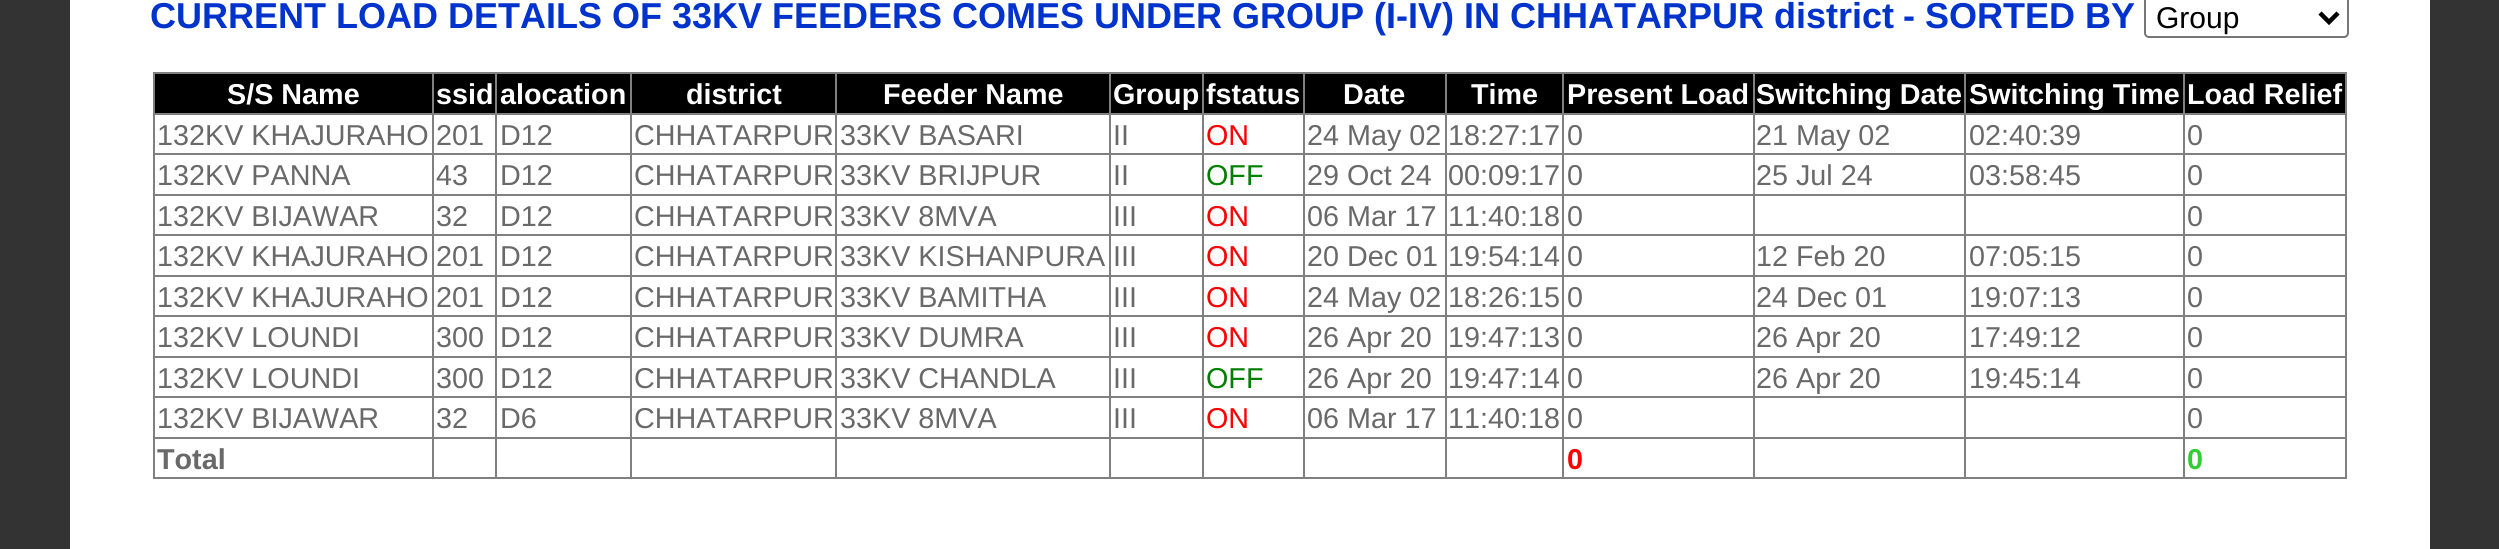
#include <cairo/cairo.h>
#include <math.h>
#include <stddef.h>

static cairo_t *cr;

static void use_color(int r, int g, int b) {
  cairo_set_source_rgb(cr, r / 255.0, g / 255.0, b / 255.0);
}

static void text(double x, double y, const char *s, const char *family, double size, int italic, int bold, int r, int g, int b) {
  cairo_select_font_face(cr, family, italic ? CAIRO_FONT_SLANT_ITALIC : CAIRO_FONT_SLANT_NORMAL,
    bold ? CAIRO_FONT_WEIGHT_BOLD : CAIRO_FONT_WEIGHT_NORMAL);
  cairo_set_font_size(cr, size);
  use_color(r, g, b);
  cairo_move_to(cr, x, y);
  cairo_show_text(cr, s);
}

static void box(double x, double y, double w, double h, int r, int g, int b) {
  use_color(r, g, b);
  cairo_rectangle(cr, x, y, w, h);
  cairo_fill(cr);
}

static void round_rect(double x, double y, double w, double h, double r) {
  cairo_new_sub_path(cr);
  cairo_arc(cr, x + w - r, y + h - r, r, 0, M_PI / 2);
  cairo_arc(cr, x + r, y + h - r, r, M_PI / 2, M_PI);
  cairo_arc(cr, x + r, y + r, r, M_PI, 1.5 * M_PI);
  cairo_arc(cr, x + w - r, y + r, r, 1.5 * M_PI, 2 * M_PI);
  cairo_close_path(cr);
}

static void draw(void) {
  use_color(51, 51, 51);
  cairo_paint(cr);
  box(70, 0, 2360, 549, 255, 255, 255);
  round_rect(2145, -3, 203, 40, 4);
  use_color(118, 118, 118);
  cairo_stroke(cr);
  cairo_new_path(cr);
  cairo_move_to(cr, 2320, 13);
  cairo_line_to(cr, 2329, 22);
  cairo_line_to(cr, 2338, 13);
  use_color(0, 0, 0);
  cairo_set_line_width(cr, 4.5);
  cairo_stroke(cr);
  box(153, 72, 2194, 2, 128, 128, 128);
  box(2345, 72, 2, 407, 128, 128, 128);
  box(153, 477, 2194, 2, 128, 128, 128);
  box(153, 72, 2, 407, 128, 128, 128);
  box(155, 74, 2190, 39, 0, 0, 0);
  box(2183, 113, 164, 2, 128, 128, 128);
  box(2183, 153, 164, 2, 128, 128, 128);
  box(2183, 194, 164, 2, 128, 128, 128);
  box(2183, 234, 164, 2, 128, 128, 128);
  box(2183, 275, 164, 2, 128, 128, 128);
  box(2183, 315, 164, 2, 128, 128, 128);
  box(2183, 356, 164, 2, 128, 128, 128);
  box(2183, 396, 164, 2, 128, 128, 128);
  box(2183, 437, 164, 2, 128, 128, 128);
  box(2183, 437, 2, 42, 128, 128, 128);
  box(1964, 437, 221, 2, 128, 128, 128);
  box(2183, 396, 2, 43, 128, 128, 128);
  box(1964, 396, 221, 2, 128, 128, 128);
  box(2183, 356, 2, 42, 128, 128, 128);
  box(1964, 356, 221, 2, 128, 128, 128);
  box(2183, 315, 2, 43, 128, 128, 128);
  box(1964, 315, 221, 2, 128, 128, 128);
  box(2183, 275, 2, 42, 128, 128, 128);
  box(1964, 275, 221, 2, 128, 128, 128);
  box(2183, 234, 2, 43, 128, 128, 128);
  box(1964, 234, 221, 2, 128, 128, 128);
  box(2183, 194, 2, 42, 128, 128, 128);
  box(1964, 194, 221, 2, 128, 128, 128);
  box(2183, 153, 2, 43, 128, 128, 128);
  box(1964, 153, 221, 2, 128, 128, 128);
  box(2183, 113, 2, 42, 128, 128, 128);
  box(1964, 113, 221, 2, 128, 128, 128);
  box(1964, 437, 2, 42, 128, 128, 128);
  box(1753, 437, 214, 2, 128, 128, 128);
  box(1964, 396, 2, 43, 128, 128, 128);
  box(1753, 396, 214, 2, 128, 128, 128);
  box(1964, 356, 2, 42, 128, 128, 128);
  box(1753, 356, 214, 2, 128, 128, 128);
  box(1964, 315, 2, 43, 128, 128, 128);
  box(1753, 315, 214, 2, 128, 128, 128);
  box(1964, 275, 2, 42, 128, 128, 128);
  box(1753, 275, 214, 2, 128, 128, 128);
  box(1964, 234, 2, 43, 128, 128, 128);
  box(1753, 234, 214, 2, 128, 128, 128);
  box(1964, 194, 2, 42, 128, 128, 128);
  box(1753, 194, 214, 2, 128, 128, 128);
  box(1964, 153, 2, 43, 128, 128, 128);
  box(1753, 153, 214, 2, 128, 128, 128);
  box(1964, 113, 2, 42, 128, 128, 128);
  box(1753, 113, 214, 2, 128, 128, 128);
  box(1753, 437, 2, 42, 128, 128, 128);
  box(1562, 437, 193, 2, 128, 128, 128);
  box(1753, 396, 2, 43, 128, 128, 128);
  box(1562, 396, 193, 2, 128, 128, 128);
  box(1753, 356, 2, 42, 128, 128, 128);
  box(1562, 356, 193, 2, 128, 128, 128);
  box(1753, 315, 2, 43, 128, 128, 128);
  box(1562, 315, 193, 2, 128, 128, 128);
  box(1753, 275, 2, 42, 128, 128, 128);
  box(1562, 275, 193, 2, 128, 128, 128);
  box(1753, 234, 2, 43, 128, 128, 128);
  box(1562, 234, 193, 2, 128, 128, 128);
  box(1753, 194, 2, 42, 128, 128, 128);
  box(1562, 194, 193, 2, 128, 128, 128);
  box(1753, 153, 2, 43, 128, 128, 128);
  box(1562, 153, 193, 2, 128, 128, 128);
  box(1753, 113, 2, 42, 128, 128, 128);
  box(1562, 113, 193, 2, 128, 128, 128);
  box(1562, 437, 2, 42, 128, 128, 128);
  box(1445, 437, 119, 2, 128, 128, 128);
  box(1562, 396, 2, 43, 128, 128, 128);
  box(1445, 396, 119, 2, 128, 128, 128);
  box(1562, 356, 2, 42, 128, 128, 128);
  box(1445, 356, 119, 2, 128, 128, 128);
  box(1562, 315, 2, 43, 128, 128, 128);
  box(1445, 315, 119, 2, 128, 128, 128);
  box(1562, 275, 2, 42, 128, 128, 128);
  box(1445, 275, 119, 2, 128, 128, 128);
  box(1562, 234, 2, 43, 128, 128, 128);
  box(1445, 234, 119, 2, 128, 128, 128);
  box(1562, 194, 2, 42, 128, 128, 128);
  box(1445, 194, 119, 2, 128, 128, 128);
  box(1562, 153, 2, 43, 128, 128, 128);
  box(1445, 153, 119, 2, 128, 128, 128);
  box(1562, 113, 2, 42, 128, 128, 128);
  box(1445, 113, 119, 2, 128, 128, 128);
  box(1445, 437, 2, 42, 128, 128, 128);
  box(1303, 437, 144, 2, 128, 128, 128);
  box(1445, 396, 2, 43, 128, 128, 128);
  box(1303, 396, 144, 2, 128, 128, 128);
  box(1445, 356, 2, 42, 128, 128, 128);
  box(1303, 356, 144, 2, 128, 128, 128);
  box(1445, 315, 2, 43, 128, 128, 128);
  box(1303, 315, 144, 2, 128, 128, 128);
  box(1445, 275, 2, 42, 128, 128, 128);
  box(1303, 275, 144, 2, 128, 128, 128);
  box(1445, 234, 2, 43, 128, 128, 128);
  box(1303, 234, 144, 2, 128, 128, 128);
  box(1445, 194, 2, 42, 128, 128, 128);
  box(1303, 194, 144, 2, 128, 128, 128);
  box(1445, 153, 2, 43, 128, 128, 128);
  box(1303, 153, 144, 2, 128, 128, 128);
  box(1445, 113, 2, 42, 128, 128, 128);
  box(1303, 113, 144, 2, 128, 128, 128);
  box(1303, 437, 2, 42, 128, 128, 128);
  box(1202, 437, 103, 2, 128, 128, 128);
  box(1303, 396, 2, 43, 128, 128, 128);
  box(1202, 396, 103, 2, 128, 128, 128);
  box(1303, 356, 2, 42, 128, 128, 128);
  box(1202, 356, 103, 2, 128, 128, 128);
  box(1303, 315, 2, 43, 128, 128, 128);
  box(1202, 315, 103, 2, 128, 128, 128);
  box(1303, 275, 2, 42, 128, 128, 128);
  box(1202, 275, 103, 2, 128, 128, 128);
  box(1303, 234, 2, 43, 128, 128, 128);
  box(1202, 234, 103, 2, 128, 128, 128);
  box(1303, 194, 2, 42, 128, 128, 128);
  box(1202, 194, 103, 2, 128, 128, 128);
  box(1303, 153, 2, 43, 128, 128, 128);
  box(1202, 153, 103, 2, 128, 128, 128);
  box(1303, 113, 2, 42, 128, 128, 128);
  box(1202, 113, 103, 2, 128, 128, 128);
  box(1202, 437, 2, 42, 128, 128, 128);
  box(1109, 437, 95, 2, 128, 128, 128);
  box(1202, 396, 2, 43, 128, 128, 128);
  box(1109, 396, 95, 2, 128, 128, 128);
  box(1202, 356, 2, 42, 128, 128, 128);
  box(1109, 356, 95, 2, 128, 128, 128);
  box(1202, 315, 2, 43, 128, 128, 128);
  box(1109, 315, 95, 2, 128, 128, 128);
  box(1202, 275, 2, 42, 128, 128, 128);
  box(1109, 275, 95, 2, 128, 128, 128);
  box(1202, 234, 2, 43, 128, 128, 128);
  box(1109, 234, 95, 2, 128, 128, 128);
  box(1202, 194, 2, 42, 128, 128, 128);
  box(1109, 194, 95, 2, 128, 128, 128);
  box(1202, 153, 2, 43, 128, 128, 128);
  box(1109, 153, 95, 2, 128, 128, 128);
  box(1202, 113, 2, 42, 128, 128, 128);
  box(1109, 113, 95, 2, 128, 128, 128);
  box(1109, 437, 2, 42, 128, 128, 128);
  box(835, 437, 277, 2, 128, 128, 128);
  box(1109, 396, 2, 43, 128, 128, 128);
  box(835, 396, 277, 2, 128, 128, 128);
  box(1109, 356, 2, 42, 128, 128, 128);
  box(835, 356, 277, 2, 128, 128, 128);
  box(1109, 315, 2, 43, 128, 128, 128);
  box(835, 315, 277, 2, 128, 128, 128);
  box(1109, 275, 2, 42, 128, 128, 128);
  box(835, 275, 277, 2, 128, 128, 128);
  box(1109, 234, 2, 43, 128, 128, 128);
  box(835, 234, 277, 2, 128, 128, 128);
  box(1109, 194, 2, 42, 128, 128, 128);
  box(835, 194, 277, 2, 128, 128, 128);
  box(1109, 153, 2, 43, 128, 128, 128);
  box(835, 153, 277, 2, 128, 128, 128);
  box(1109, 113, 2, 42, 128, 128, 128);
  box(835, 113, 277, 2, 128, 128, 128);
  box(835, 437, 2, 42, 128, 128, 128);
  box(630, 437, 207, 2, 128, 128, 128);
  box(835, 396, 2, 43, 128, 128, 128);
  box(630, 396, 207, 2, 128, 128, 128);
  box(835, 356, 2, 42, 128, 128, 128);
  box(630, 356, 207, 2, 128, 128, 128);
  box(835, 315, 2, 43, 128, 128, 128);
  box(630, 315, 207, 2, 128, 128, 128);
  box(835, 275, 2, 42, 128, 128, 128);
  box(630, 275, 207, 2, 128, 128, 128);
  box(835, 234, 2, 43, 128, 128, 128);
  box(630, 234, 207, 2, 128, 128, 128);
  box(835, 194, 2, 42, 128, 128, 128);
  box(630, 194, 207, 2, 128, 128, 128);
  box(835, 153, 2, 43, 128, 128, 128);
  box(630, 153, 207, 2, 128, 128, 128);
  box(835, 113, 2, 42, 128, 128, 128);
  box(630, 113, 207, 2, 128, 128, 128);
  box(630, 437, 2, 42, 128, 128, 128);
  box(495, 437, 137, 2, 128, 128, 128);
  box(630, 396, 2, 43, 128, 128, 128);
  box(495, 396, 137, 2, 128, 128, 128);
  box(630, 356, 2, 42, 128, 128, 128);
  box(495, 356, 137, 2, 128, 128, 128);
  box(630, 315, 2, 43, 128, 128, 128);
  box(495, 315, 137, 2, 128, 128, 128);
  box(630, 275, 2, 42, 128, 128, 128);
  box(495, 275, 137, 2, 128, 128, 128);
  box(630, 234, 2, 43, 128, 128, 128);
  box(495, 234, 137, 2, 128, 128, 128);
  box(630, 194, 2, 42, 128, 128, 128);
  box(495, 194, 137, 2, 128, 128, 128);
  box(630, 153, 2, 43, 128, 128, 128);
  box(495, 153, 137, 2, 128, 128, 128);
  box(630, 113, 2, 42, 128, 128, 128);
  box(495, 113, 137, 2, 128, 128, 128);
  box(495, 437, 2, 42, 128, 128, 128);
  box(432, 437, 65, 2, 128, 128, 128);
  box(495, 396, 2, 43, 128, 128, 128);
  box(432, 396, 65, 2, 128, 128, 128);
  box(495, 356, 2, 42, 128, 128, 128);
  box(432, 356, 65, 2, 128, 128, 128);
  box(495, 315, 2, 43, 128, 128, 128);
  box(432, 315, 65, 2, 128, 128, 128);
  box(495, 275, 2, 42, 128, 128, 128);
  box(432, 275, 65, 2, 128, 128, 128);
  box(495, 234, 2, 43, 128, 128, 128);
  box(432, 234, 65, 2, 128, 128, 128);
  box(495, 194, 2, 42, 128, 128, 128);
  box(432, 194, 65, 2, 128, 128, 128);
  box(495, 153, 2, 43, 128, 128, 128);
  box(432, 153, 65, 2, 128, 128, 128);
  box(495, 113, 2, 42, 128, 128, 128);
  box(432, 113, 65, 2, 128, 128, 128);
  box(432, 437, 2, 42, 128, 128, 128);
  box(153, 437, 281, 2, 128, 128, 128);
  box(432, 396, 2, 43, 128, 128, 128);
  box(153, 396, 281, 2, 128, 128, 128);
  box(432, 356, 2, 42, 128, 128, 128);
  box(153, 356, 281, 2, 128, 128, 128);
  box(432, 315, 2, 43, 128, 128, 128);
  box(153, 315, 281, 2, 128, 128, 128);
  box(432, 275, 2, 42, 128, 128, 128);
  box(153, 275, 281, 2, 128, 128, 128);
  box(432, 234, 2, 43, 128, 128, 128);
  box(153, 234, 281, 2, 128, 128, 128);
  box(432, 194, 2, 42, 128, 128, 128);
  box(153, 194, 281, 2, 128, 128, 128);
  box(432, 153, 2, 43, 128, 128, 128);
  box(153, 153, 281, 2, 128, 128, 128);
  box(432, 113, 2, 42, 128, 128, 128);
  box(153, 113, 281, 2, 128, 128, 128);
  box(432, 72, 2, 43, 128, 128, 128);
  box(495, 72, 2, 43, 128, 128, 128);
  box(630, 72, 2, 43, 128, 128, 128);
  box(835, 72, 2, 43, 128, 128, 128);
  box(1109, 72, 2, 43, 128, 128, 128);
  box(1202, 72, 2, 43, 128, 128, 128);
  box(1303, 72, 2, 43, 128, 128, 128);
  box(1445, 72, 2, 43, 128, 128, 128);
  box(1562, 72, 2, 43, 128, 128, 128);
  box(1753, 72, 2, 43, 128, 128, 128);
  box(1964, 72, 2, 43, 128, 128, 128);
  box(2183, 72, 2, 43, 128, 128, 128);
  text(150, 28, "CURRENT LOAD DETAILS OF 33KV FEEDERS COMES UNDER GROUP (I-IV) IN CHHATARPUR district", "Liberation Sans", 36, 0, 1, 0, 51, 204);
  text(1903, 28, "- SORTED BY", "Liberation Sans", 36, 0, 1, 0, 51, 204);
  text(2156, 28, "Group", "Liberation Sans", 30, 0, 0, 0, 0, 0);
  text(227, 104, "S/S Name", "Liberation Sans", 28.75, 0, 1, 255, 255, 255);
  text(436, 104, "ssid", "Liberation Sans", 28.75, 0, 1, 255, 255, 255);
  text(500, 104, "alocation", "Liberation Sans", 28.75, 0, 1, 255, 255, 255);
  text(686, 104, "district", "Liberation Sans", 28.75, 0, 1, 255, 255, 255);
  text(883, 104, "Feeder Name", "Liberation Sans", 28.75, 0, 1, 255, 255, 255);
  text(1113, 104, "Group", "Liberation Sans", 28.75, 0, 1, 255, 255, 255);
  text(1206, 104, "fstatus", "Liberation Sans", 28.75, 0, 1, 255, 255, 255);
  text(1343, 104, "Date", "Liberation Sans", 28.75, 0, 1, 255, 255, 255);
  text(1471, 104, "Time", "Liberation Sans", 28.75, 0, 1, 255, 255, 255);
  text(1567, 104, "Present Load", "Liberation Sans", 28.75, 0, 1, 255, 255, 255);
  text(1756, 104, "Switching Date", "Liberation Sans", 28.75, 0, 1, 255, 255, 255);
  text(1969, 104, "Switching Time", "Liberation Sans", 28.75, 0, 1, 255, 255, 255);
  text(2187, 104, "Load Relief", "Liberation Sans", 28.75, 0, 1, 255, 255, 255);
  text(157, 145, "132KV KHAJURAHO", "Liberation Sans", 28.75, 0, 0, 105, 105, 105);
  text(436, 145, "201", "Liberation Sans", 28.75, 0, 0, 105, 105, 105);
  text(500, 145, "D12", "Liberation Sans", 28.75, 0, 0, 105, 105, 105);
  text(634, 145, "CHHATARPUR", "Liberation Sans", 28.75, 0, 0, 105, 105, 105);
  text(840, 145, "33KV BASARI", "Liberation Sans", 28.75, 0, 0, 105, 105, 105);
  text(1113, 145, "II", "Liberation Sans", 28.75, 0, 0, 105, 105, 105);
  text(1206, 145, "ON", "Liberation Sans", 28.75, 0, 0, 255, 0, 0);
  text(1307, 145, "24 May 02", "Liberation Sans", 28.75, 0, 0, 105, 105, 105);
  text(1448, 145, "18:27:17", "Liberation Sans", 28.75, 0, 0, 105, 105, 105);
  text(1567, 145, "0", "Liberation Sans", 28.75, 0, 0, 105, 105, 105);
  text(1756, 145, "21 May 02", "Liberation Sans", 28.75, 0, 0, 105, 105, 105);
  text(1969, 145, "02:40:39", "Liberation Sans", 28.75, 0, 0, 105, 105, 105);
  text(2187, 145, "0", "Liberation Sans", 28.75, 0, 0, 105, 105, 105);
  text(157, 185, "132KV PANNA", "Liberation Sans", 28.75, 0, 0, 105, 105, 105);
  text(436, 185, "43", "Liberation Sans", 28.75, 0, 0, 105, 105, 105);
  text(500, 185, "D12", "Liberation Sans", 28.75, 0, 0, 105, 105, 105);
  text(634, 185, "CHHATARPUR", "Liberation Sans", 28.75, 0, 0, 105, 105, 105);
  text(840, 185, "33KV BRIJPUR", "Liberation Sans", 28.75, 0, 0, 105, 105, 105);
  text(1113, 185, "II", "Liberation Sans", 28.75, 0, 0, 105, 105, 105);
  text(1206, 185, "OFF", "Liberation Sans", 28.75, 0, 0, 0, 128, 0);
  text(1307, 185, "29 Oct 24", "Liberation Sans", 28.75, 0, 0, 105, 105, 105);
  text(1448, 185, "00:09:17", "Liberation Sans", 28.75, 0, 0, 105, 105, 105);
  text(1567, 185, "0", "Liberation Sans", 28.75, 0, 0, 105, 105, 105);
  text(1756, 185, "25 Jul 24", "Liberation Sans", 28.75, 0, 0, 105, 105, 105);
  text(1969, 185, "03:58:45", "Liberation Sans", 28.75, 0, 0, 105, 105, 105);
  text(2187, 185, "0", "Liberation Sans", 28.75, 0, 0, 105, 105, 105);
  text(157, 226, "132KV BIJAWAR", "Liberation Sans", 28.75, 0, 0, 105, 105, 105);
  text(436, 226, "32", "Liberation Sans", 28.75, 0, 0, 105, 105, 105);
  text(500, 226, "D12", "Liberation Sans", 28.75, 0, 0, 105, 105, 105);
  text(634, 226, "CHHATARPUR", "Liberation Sans", 28.75, 0, 0, 105, 105, 105);
  text(840, 226, "33KV 8MVA", "Liberation Sans", 28.75, 0, 0, 105, 105, 105);
  text(1113, 226, "III", "Liberation Sans", 28.75, 0, 0, 105, 105, 105);
  text(1206, 226, "ON", "Liberation Sans", 28.75, 0, 0, 255, 0, 0);
  text(1307, 226, "06 Mar 17", "Liberation Sans", 28.75, 0, 0, 105, 105, 105);
  text(1448, 226, "11:40:18", "Liberation Sans", 28.75, 0, 0, 105, 105, 105);
  text(1567, 226, "0", "Liberation Sans", 28.75, 0, 0, 105, 105, 105);
  text(2187, 226, "0", "Liberation Sans", 28.75, 0, 0, 105, 105, 105);
  text(157, 266, "132KV KHAJURAHO", "Liberation Sans", 28.75, 0, 0, 105, 105, 105);
  text(436, 266, "201", "Liberation Sans", 28.75, 0, 0, 105, 105, 105);
  text(500, 266, "D12", "Liberation Sans", 28.75, 0, 0, 105, 105, 105);
  text(634, 266, "CHHATARPUR", "Liberation Sans", 28.75, 0, 0, 105, 105, 105);
  text(840, 266, "33KV KISHANPURA", "Liberation Sans", 28.75, 0, 0, 105, 105, 105);
  text(1113, 266, "III", "Liberation Sans", 28.75, 0, 0, 105, 105, 105);
  text(1206, 266, "ON", "Liberation Sans", 28.75, 0, 0, 255, 0, 0);
  text(1307, 266, "20 Dec 01", "Liberation Sans", 28.75, 0, 0, 105, 105, 105);
  text(1448, 266, "19:54:14", "Liberation Sans", 28.75, 0, 0, 105, 105, 105);
  text(1567, 266, "0", "Liberation Sans", 28.75, 0, 0, 105, 105, 105);
  text(1756, 266, "12 Feb 20", "Liberation Sans", 28.75, 0, 0, 105, 105, 105);
  text(1969, 266, "07:05:15", "Liberation Sans", 28.75, 0, 0, 105, 105, 105);
  text(2187, 266, "0", "Liberation Sans", 28.75, 0, 0, 105, 105, 105);
  text(157, 307, "132KV KHAJURAHO", "Liberation Sans", 28.75, 0, 0, 105, 105, 105);
  text(436, 307, "201", "Liberation Sans", 28.75, 0, 0, 105, 105, 105);
  text(500, 307, "D12", "Liberation Sans", 28.75, 0, 0, 105, 105, 105);
  text(634, 307, "CHHATARPUR", "Liberation Sans", 28.75, 0, 0, 105, 105, 105);
  text(840, 307, "33KV BAMITHA", "Liberation Sans", 28.75, 0, 0, 105, 105, 105);
  text(1113, 307, "III", "Liberation Sans", 28.75, 0, 0, 105, 105, 105);
  text(1206, 307, "ON", "Liberation Sans", 28.75, 0, 0, 255, 0, 0);
  text(1307, 307, "24 May 02", "Liberation Sans", 28.75, 0, 0, 105, 105, 105);
  text(1448, 307, "18:26:15", "Liberation Sans", 28.75, 0, 0, 105, 105, 105);
  text(1567, 307, "0", "Liberation Sans", 28.75, 0, 0, 105, 105, 105);
  text(1756, 307, "24 Dec 01", "Liberation Sans", 28.75, 0, 0, 105, 105, 105);
  text(1969, 307, "19:07:13", "Liberation Sans", 28.75, 0, 0, 105, 105, 105);
  text(2187, 307, "0", "Liberation Sans", 28.75, 0, 0, 105, 105, 105);
  text(157, 347, "132KV LOUNDI", "Liberation Sans", 28.75, 0, 0, 105, 105, 105);
  text(436, 347, "300", "Liberation Sans", 28.75, 0, 0, 105, 105, 105);
  text(500, 347, "D12", "Liberation Sans", 28.75, 0, 0, 105, 105, 105);
  text(634, 347, "CHHATARPUR", "Liberation Sans", 28.75, 0, 0, 105, 105, 105);
  text(840, 347, "33KV DUMRA", "Liberation Sans", 28.75, 0, 0, 105, 105, 105);
  text(1113, 347, "III", "Liberation Sans", 28.75, 0, 0, 105, 105, 105);
  text(1206, 347, "ON", "Liberation Sans", 28.75, 0, 0, 255, 0, 0);
  text(1307, 347, "26 Apr 20", "Liberation Sans", 28.75, 0, 0, 105, 105, 105);
  text(1448, 347, "19:47:13", "Liberation Sans", 28.75, 0, 0, 105, 105, 105);
  text(1567, 347, "0", "Liberation Sans", 28.75, 0, 0, 105, 105, 105);
  text(1756, 347, "26 Apr 20", "Liberation Sans", 28.75, 0, 0, 105, 105, 105);
  text(1969, 347, "17:49:12", "Liberation Sans", 28.75, 0, 0, 105, 105, 105);
  text(2187, 347, "0", "Liberation Sans", 28.75, 0, 0, 105, 105, 105);
  text(157, 388, "132KV LOUNDI", "Liberation Sans", 28.75, 0, 0, 105, 105, 105);
  text(436, 388, "300", "Liberation Sans", 28.75, 0, 0, 105, 105, 105);
  text(500, 388, "D12", "Liberation Sans", 28.75, 0, 0, 105, 105, 105);
  text(634, 388, "CHHATARPUR", "Liberation Sans", 28.75, 0, 0, 105, 105, 105);
  text(840, 388, "33KV CHANDLA", "Liberation Sans", 28.75, 0, 0, 105, 105, 105);
  text(1113, 388, "III", "Liberation Sans", 28.75, 0, 0, 105, 105, 105);
  text(1206, 388, "OFF", "Liberation Sans", 28.75, 0, 0, 0, 128, 0);
  text(1307, 388, "26 Apr 20", "Liberation Sans", 28.75, 0, 0, 105, 105, 105);
  text(1448, 388, "19:47:14", "Liberation Sans", 28.75, 0, 0, 105, 105, 105);
  text(1567, 388, "0", "Liberation Sans", 28.75, 0, 0, 105, 105, 105);
  text(1756, 388, "26 Apr 20", "Liberation Sans", 28.75, 0, 0, 105, 105, 105);
  text(1969, 388, "19:45:14", "Liberation Sans", 28.75, 0, 0, 105, 105, 105);
  text(2187, 388, "0", "Liberation Sans", 28.75, 0, 0, 105, 105, 105);
  text(157, 428, "132KV BIJAWAR", "Liberation Sans", 28.75, 0, 0, 105, 105, 105);
  text(436, 428, "32", "Liberation Sans", 28.75, 0, 0, 105, 105, 105);
  text(500, 428, "D6", "Liberation Sans", 28.75, 0, 0, 105, 105, 105);
  text(634, 428, "CHHATARPUR", "Liberation Sans", 28.75, 0, 0, 105, 105, 105);
  text(840, 428, "33KV 8MVA", "Liberation Sans", 28.75, 0, 0, 105, 105, 105);
  text(1113, 428, "III", "Liberation Sans", 28.75, 0, 0, 105, 105, 105);
  text(1206, 428, "ON", "Liberation Sans", 28.75, 0, 0, 255, 0, 0);
  text(1307, 428, "06 Mar 17", "Liberation Sans", 28.75, 0, 0, 105, 105, 105);
  text(1448, 428, "11:40:18", "Liberation Sans", 28.75, 0, 0, 105, 105, 105);
  text(1567, 428, "0", "Liberation Sans", 28.75, 0, 0, 105, 105, 105);
  text(2187, 428, "0", "Liberation Sans", 28.75, 0, 0, 105, 105, 105);
  text(157, 469, "Total", "Liberation Sans", 28.75, 0, 1, 105, 105, 105);
  text(1567, 469, "0", "Liberation Sans", 28.75, 0, 1, 255, 0, 0);
  text(2187, 469, "0", "Liberation Sans", 28.75, 0, 1, 50, 205, 50);
}

int main(void) {
  cairo_surface_t *surface = cairo_image_surface_create(CAIRO_FORMAT_RGB24, 2499, 549);
  cr = cairo_create(surface);
  cairo_font_options_t *options = cairo_font_options_create();
  cairo_font_options_set_hint_metrics(options, CAIRO_HINT_METRICS_OFF);
  cairo_font_options_set_hint_style(options, CAIRO_HINT_STYLE_NONE);
  cairo_set_font_options(cr, options);
  cairo_set_miter_limit(cr, 4);
  draw();
  cairo_surface_write_to_png(surface, "out.png");
  cairo_font_options_destroy(options);
  cairo_destroy(cr);
  cairo_surface_destroy(surface);
  return 0;
}
